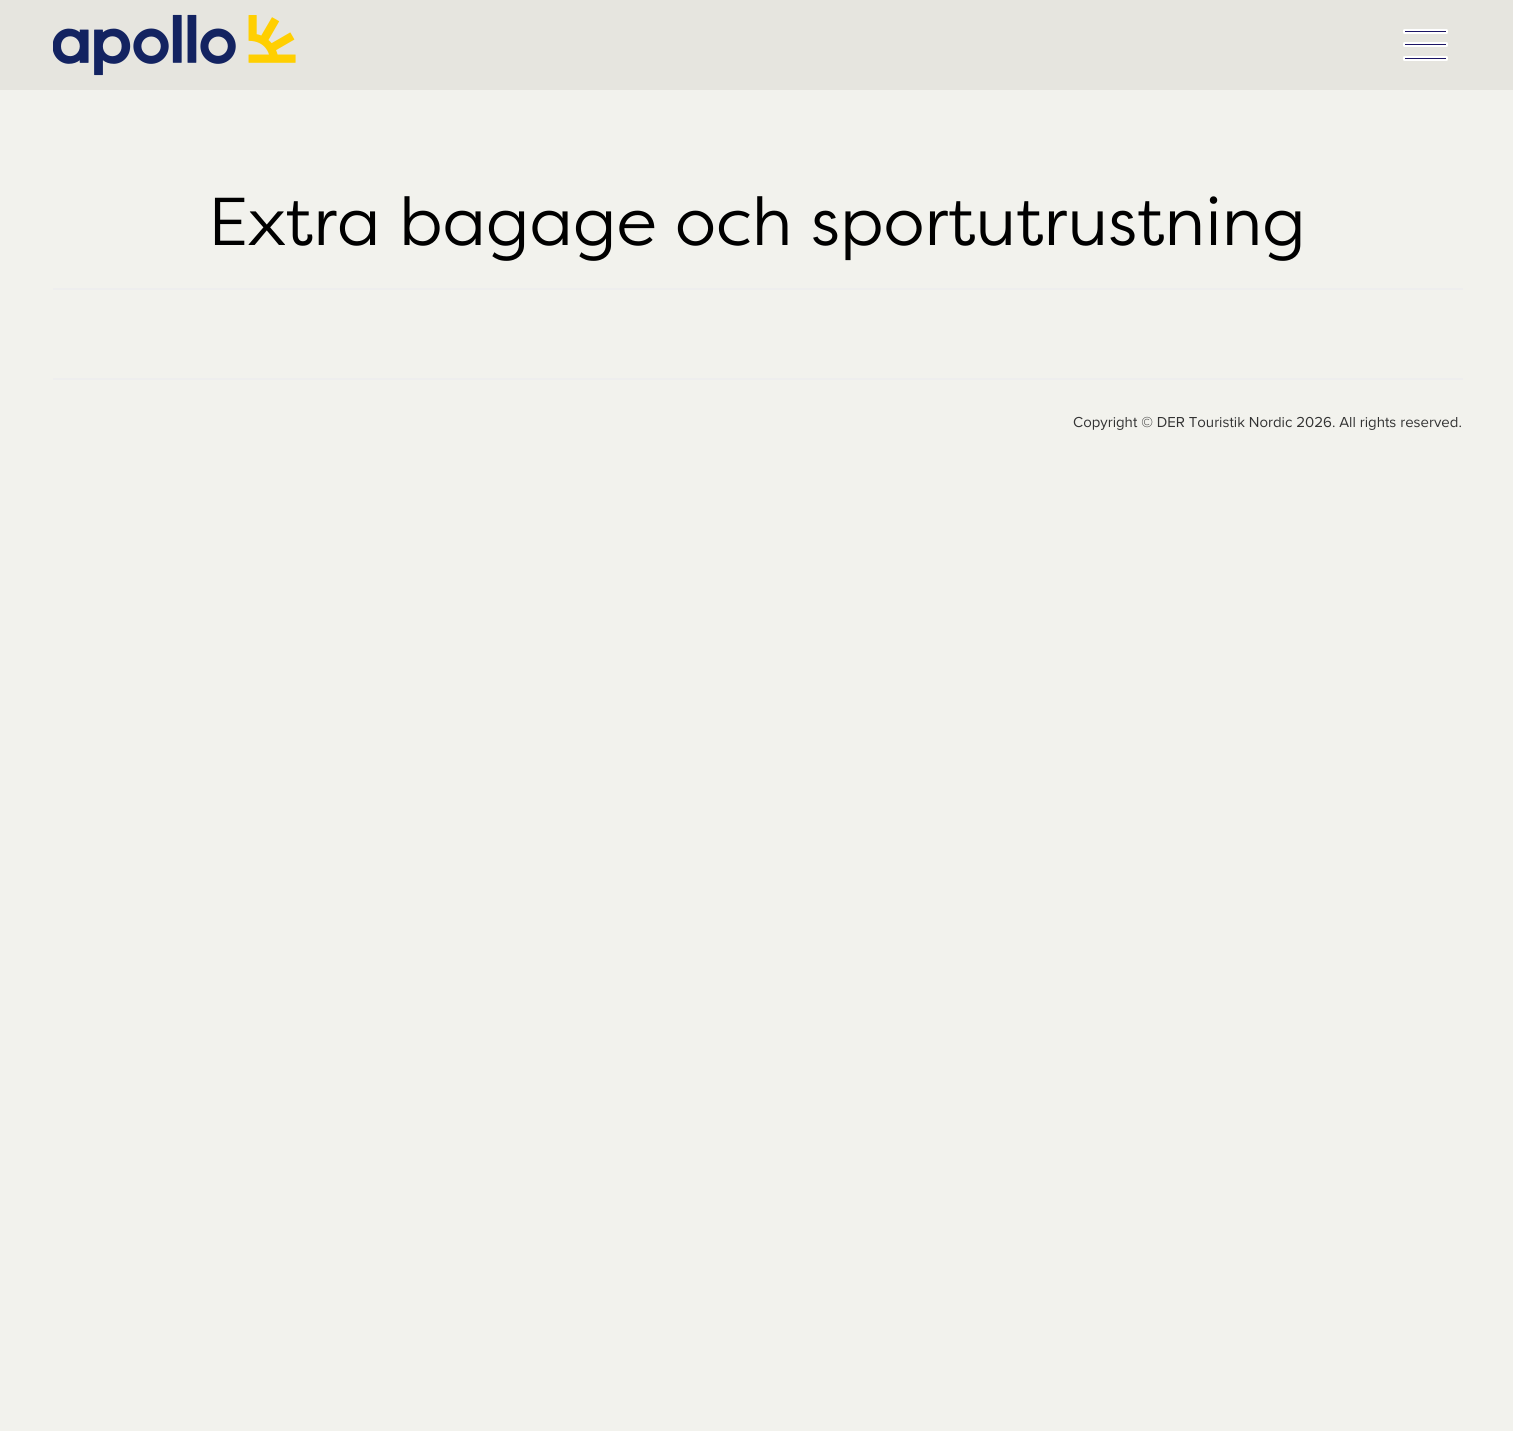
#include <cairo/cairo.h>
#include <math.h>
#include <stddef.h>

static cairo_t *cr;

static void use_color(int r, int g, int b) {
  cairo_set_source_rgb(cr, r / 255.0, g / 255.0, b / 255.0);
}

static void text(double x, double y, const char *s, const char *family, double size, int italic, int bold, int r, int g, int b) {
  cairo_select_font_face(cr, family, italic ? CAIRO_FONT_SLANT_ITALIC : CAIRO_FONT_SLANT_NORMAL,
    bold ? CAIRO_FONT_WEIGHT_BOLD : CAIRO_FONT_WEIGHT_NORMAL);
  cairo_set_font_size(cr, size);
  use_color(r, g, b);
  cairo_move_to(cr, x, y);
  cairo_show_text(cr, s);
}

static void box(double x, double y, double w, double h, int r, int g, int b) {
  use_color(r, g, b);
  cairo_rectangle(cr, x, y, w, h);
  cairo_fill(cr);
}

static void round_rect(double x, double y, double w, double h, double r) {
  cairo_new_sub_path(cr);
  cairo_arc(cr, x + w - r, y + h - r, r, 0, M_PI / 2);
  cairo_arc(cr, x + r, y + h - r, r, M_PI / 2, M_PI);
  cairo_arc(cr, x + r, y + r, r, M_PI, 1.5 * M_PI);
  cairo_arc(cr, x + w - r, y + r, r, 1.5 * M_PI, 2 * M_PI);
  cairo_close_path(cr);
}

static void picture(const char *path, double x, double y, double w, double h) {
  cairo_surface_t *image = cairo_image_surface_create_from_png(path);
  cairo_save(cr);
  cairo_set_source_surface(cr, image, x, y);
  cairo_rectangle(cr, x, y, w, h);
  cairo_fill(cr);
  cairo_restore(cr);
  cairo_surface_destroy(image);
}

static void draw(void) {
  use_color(242, 242, 237);
  cairo_paint(cr);
  box(0, 0, 1513, 90, 230, 229, 223);
  picture("img_01.png", 53, 14, 243, 62);
  use_color(27, 20, 100);
  round_rect(1404, 30, 43, 3, 0.5);
  cairo_fill_preserve(cr);
  use_color(255, 255, 255);
  cairo_stroke(cr);
  use_color(27, 20, 100);
  round_rect(1404, 43, 43, 3, 0.5);
  cairo_fill_preserve(cr);
  use_color(255, 255, 255);
  cairo_stroke(cr);
  use_color(27, 20, 100);
  round_rect(1404, 57, 43, 3, 0.5);
  cairo_fill_preserve(cr);
  use_color(255, 255, 255);
  cairo_stroke(cr);
  box(53, 288, 1410, 2, 238, 238, 238);
  box(53, 378, 1410, 2, 238, 238, 238);
  text(208, 245, "Extra bagage och sportutrustning", "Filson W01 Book", 67.5, 0, 0, 0, 0, 0);
  text(1073, 427, "Copyright © DER Touristik Nordic 2026. All rights reserved.", "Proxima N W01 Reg", 15, 0, 0, 51, 51, 51);
}

int main(void) {
  cairo_surface_t *surface = cairo_image_surface_create(CAIRO_FORMAT_RGB24, 1513, 1431);
  cr = cairo_create(surface);
  cairo_font_options_t *options = cairo_font_options_create();
  cairo_font_options_set_hint_metrics(options, CAIRO_HINT_METRICS_OFF);
  cairo_font_options_set_hint_style(options, CAIRO_HINT_STYLE_NONE);
  cairo_set_font_options(cr, options);
  cairo_set_miter_limit(cr, 4);
  draw();
  cairo_surface_write_to_png(surface, "out.png");
  cairo_font_options_destroy(options);
  cairo_destroy(cr);
  cairo_surface_destroy(surface);
  return 0;
}
